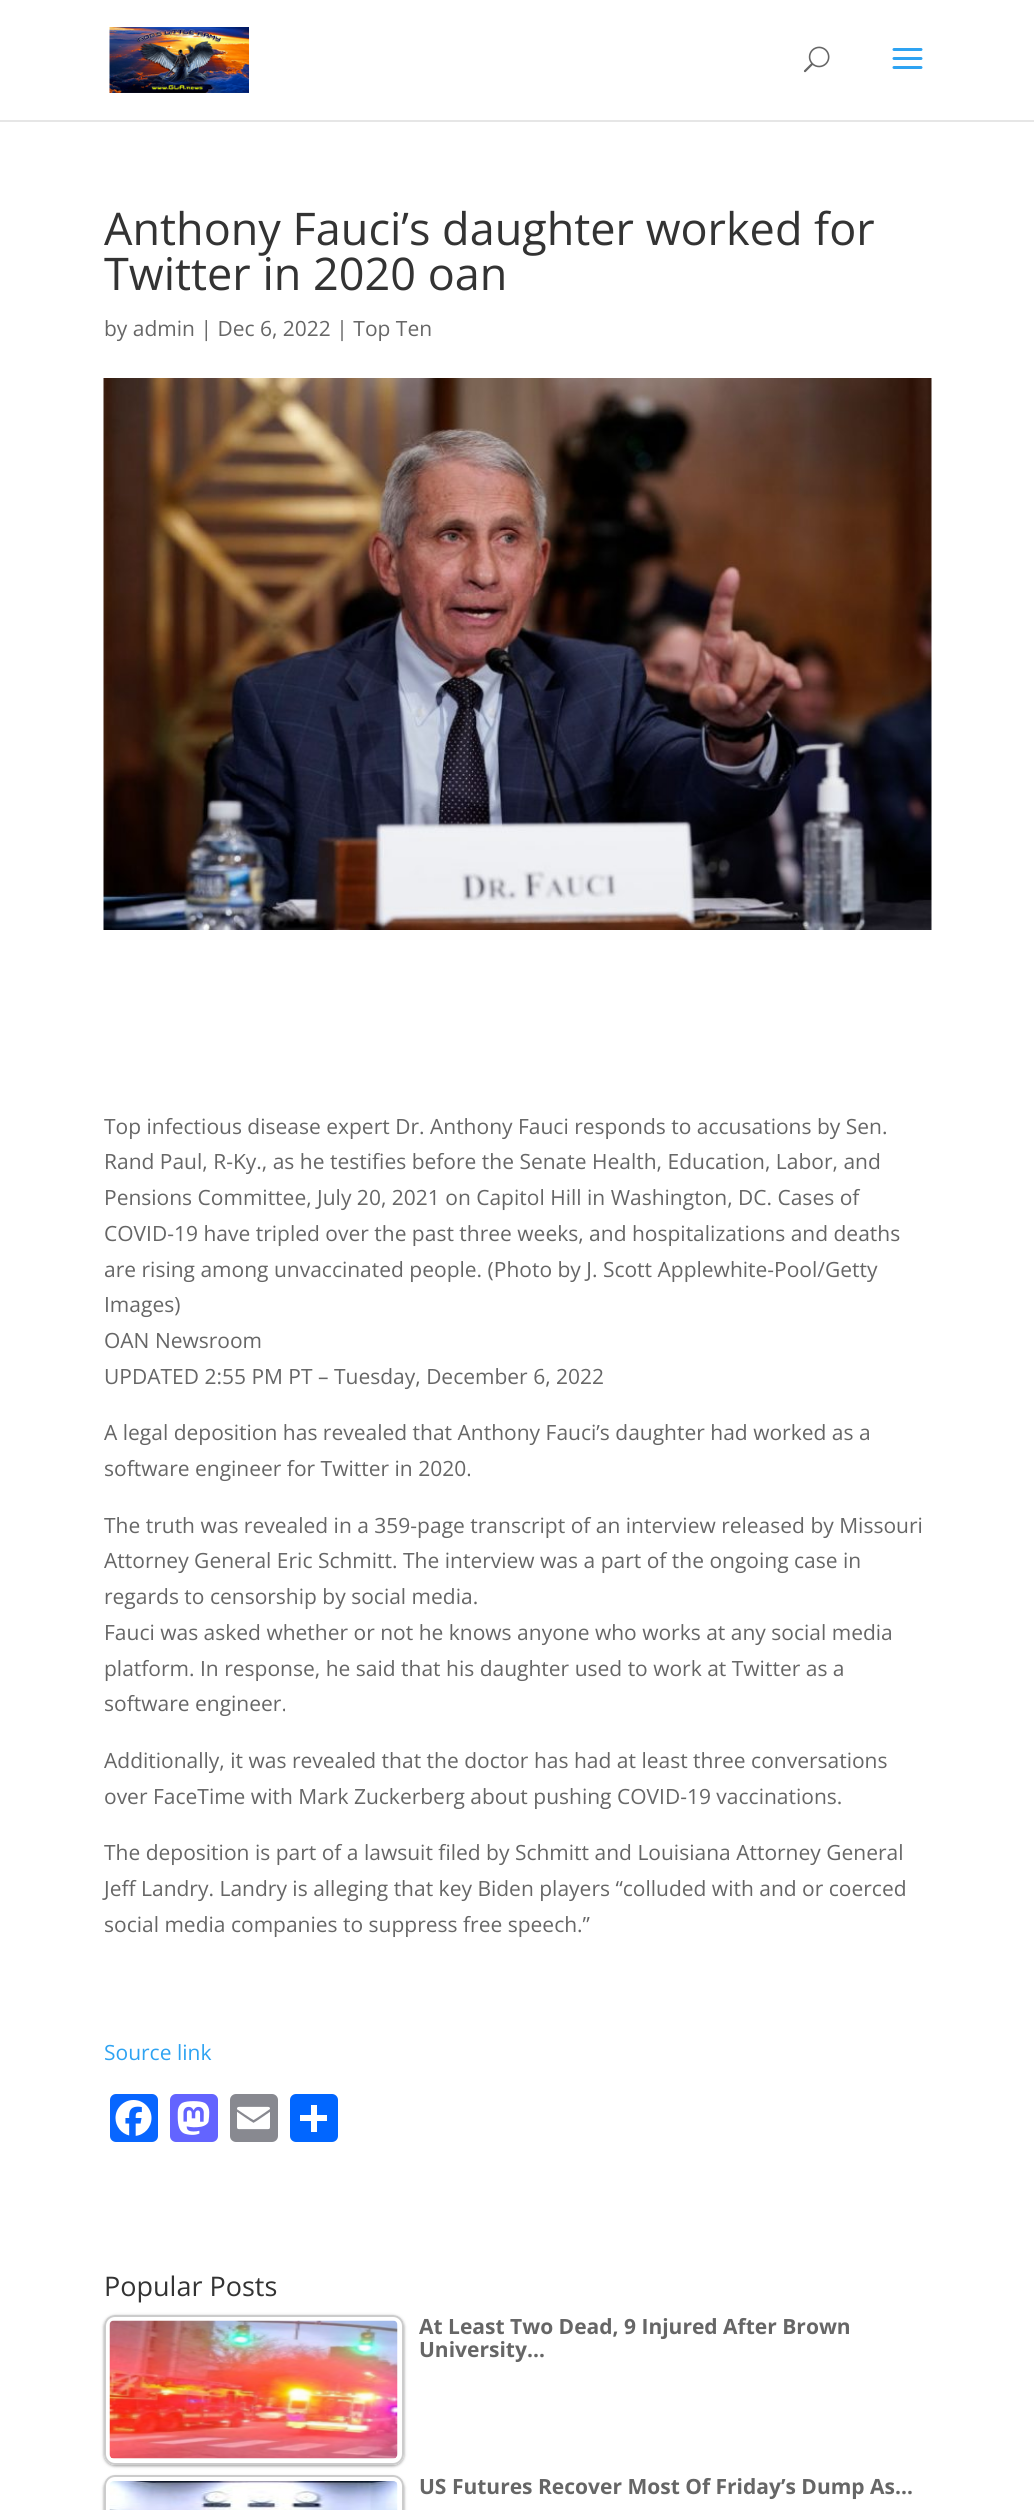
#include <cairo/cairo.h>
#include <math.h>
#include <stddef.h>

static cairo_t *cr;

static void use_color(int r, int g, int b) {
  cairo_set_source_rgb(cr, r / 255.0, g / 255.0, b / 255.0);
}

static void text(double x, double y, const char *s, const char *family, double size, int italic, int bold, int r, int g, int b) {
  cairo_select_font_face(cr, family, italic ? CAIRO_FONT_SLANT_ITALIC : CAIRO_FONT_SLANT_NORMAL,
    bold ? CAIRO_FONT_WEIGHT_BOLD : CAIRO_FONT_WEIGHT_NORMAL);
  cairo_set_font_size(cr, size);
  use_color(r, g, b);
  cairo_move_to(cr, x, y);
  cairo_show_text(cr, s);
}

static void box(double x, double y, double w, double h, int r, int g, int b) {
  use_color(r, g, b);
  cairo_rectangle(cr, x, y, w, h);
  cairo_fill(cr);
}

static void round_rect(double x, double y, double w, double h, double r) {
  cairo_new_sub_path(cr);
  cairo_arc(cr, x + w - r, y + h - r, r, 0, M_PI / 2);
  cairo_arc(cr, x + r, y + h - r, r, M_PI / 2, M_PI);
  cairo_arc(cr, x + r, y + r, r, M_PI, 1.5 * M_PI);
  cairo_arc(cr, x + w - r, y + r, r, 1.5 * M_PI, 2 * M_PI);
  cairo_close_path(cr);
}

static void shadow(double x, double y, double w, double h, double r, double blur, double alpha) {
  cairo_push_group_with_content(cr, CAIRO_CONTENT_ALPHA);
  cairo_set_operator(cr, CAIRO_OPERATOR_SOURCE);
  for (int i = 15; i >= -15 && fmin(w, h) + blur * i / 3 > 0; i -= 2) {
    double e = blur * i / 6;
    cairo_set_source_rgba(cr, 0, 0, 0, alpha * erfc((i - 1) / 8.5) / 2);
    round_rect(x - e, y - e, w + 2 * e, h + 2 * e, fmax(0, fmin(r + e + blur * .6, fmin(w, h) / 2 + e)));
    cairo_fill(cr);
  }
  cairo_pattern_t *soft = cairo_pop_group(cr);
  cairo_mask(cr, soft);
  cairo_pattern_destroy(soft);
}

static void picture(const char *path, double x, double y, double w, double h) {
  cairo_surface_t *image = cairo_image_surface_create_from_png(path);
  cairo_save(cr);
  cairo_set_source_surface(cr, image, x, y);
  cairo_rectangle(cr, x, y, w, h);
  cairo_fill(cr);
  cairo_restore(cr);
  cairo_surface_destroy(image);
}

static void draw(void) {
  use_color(255, 255, 255);
  cairo_paint(cr);
  box(0, 120, 1034, 2, 230, 230, 230);
  picture("img_01.png", 109, 27, 140, 66);
  picture("img_02.png", 803, 46, 27, 27);
  picture("img_03.png", 892, 48, 31, 21);
  picture("img_04.png", 103, 378, 829, 552);
  use_color(8, 102, 255);
  round_rect(110, 2094, 48, 48, 6);
  cairo_fill(cr);
  picture("img_05.png", 115, 2100, 37, 36);
  use_color(99, 100, 255);
  round_rect(170, 2094, 48, 48, 6);
  cairo_fill(cr);
  picture("img_06.png", 177, 2101, 33, 34);
  use_color(136, 137, 144);
  round_rect(230, 2094, 48, 48, 6);
  cairo_fill(cr);
  picture("img_07.png", 237, 2106, 33, 24);
  use_color(1, 102, 255);
  round_rect(290, 2094, 48, 48, 6);
  cairo_fill(cr);
  box(311, 2105, 6, 27, 255, 255, 255);
  box(300, 2115, 27, 6, 255, 255, 255);
  cairo_save(cr);
  cairo_set_fill_rule(cr, CAIRO_FILL_RULE_EVEN_ODD);
  cairo_new_path(cr);
  cairo_move_to(cr, 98, 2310);
  cairo_line_to(cr, 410, 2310);
  cairo_line_to(cr, 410, 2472);
  cairo_line_to(cr, 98, 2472);
  cairo_close_path(cr);
  cairo_move_to(cr, 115, 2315);
  cairo_line_to(cr, 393, 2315);
  cairo_curve_to(cr, 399, 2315, 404, 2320, 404, 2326);
  cairo_line_to(cr, 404, 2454);
  cairo_curve_to(cr, 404, 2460, 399, 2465, 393, 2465);
  cairo_line_to(cr, 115, 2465);
  cairo_curve_to(cr, 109, 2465, 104, 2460, 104, 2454);
  cairo_line_to(cr, 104, 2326);
  cairo_curve_to(cr, 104, 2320, 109, 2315, 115, 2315);
  cairo_close_path(cr);
  cairo_clip(cr);
  use_color(0, 0, 0);
  shadow(104, 2316, 300, 150, 11, 1.5, 0.4);
  cairo_restore(cr);
  round_rect(105, 2316, 298, 148, 10);
  use_color(204, 204, 204);
  cairo_stroke(cr);
  picture("img_08.png", 109, 2320, 289, 139);
  cairo_save(cr);
  cairo_set_fill_rule(cr, CAIRO_FILL_RULE_EVEN_ODD);
  cairo_new_path(cr);
  cairo_move_to(cr, 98, 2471);
  cairo_line_to(cr, 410, 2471);
  cairo_line_to(cr, 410, 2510);
  cairo_line_to(cr, 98, 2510);
  cairo_close_path(cr);
  cairo_move_to(cr, 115, 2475);
  cairo_line_to(cr, 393, 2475);
  cairo_curve_to(cr, 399, 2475, 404, 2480, 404, 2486);
  cairo_line_to(cr, 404, 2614);
  cairo_curve_to(cr, 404, 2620, 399, 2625, 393, 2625);
  cairo_line_to(cr, 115, 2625);
  cairo_curve_to(cr, 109, 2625, 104, 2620, 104, 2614);
  cairo_line_to(cr, 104, 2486);
  cairo_curve_to(cr, 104, 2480, 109, 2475, 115, 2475);
  cairo_close_path(cr);
  cairo_clip(cr);
  use_color(0, 0, 0);
  shadow(104, 2477, 300, 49, 11, 1.5, 0.4);
  cairo_restore(cr);
  round_rect(105, 2476, 298, 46, 10);
  cairo_stroke(cr);
  picture("img_09.png", 109, 2481, 289, 29);
  text(104, 245, "Anthony Fauci’s daughter worked for", "Open Sans", 45, 0, 0, 51, 51, 51);
  text(104, 290, "Twitter in 2020 oan", "Open Sans", 45, 0, 0, 51, 51, 51);
  text(104, 336, "by admin | Dec 6, 2022 | Top Ten", "Open Sans", 21, 0, 0, 102, 102, 102);
  text(104, 1134, "Top infectious disease expert Dr. Anthony Fauci responds to accusations by Sen.", "Open Sans", 21, 0, 0, 102, 102, 102);
  text(104, 1169, "Rand Paul, R-Ky., as he testifies before the Senate Health, Education, Labor, and", "Open Sans", 21, 0, 0, 102, 102, 102);
  text(104, 1205, "Pensions Committee, July 20, 2021 on Capitol Hill in Washington, DC. Cases of", "Open Sans", 21, 0, 0, 102, 102, 102);
  text(104, 1241, "COVID-19 have tripled over the past three weeks, and hospitalizations and deaths", "Open Sans", 21, 0, 0, 102, 102, 102);
  text(104, 1277, "are rising among unvaccinated people. (Photo by J. Scott Applewhite-Pool/Getty", "Open Sans", 21, 0, 0, 102, 102, 102);
  text(104, 1312, "Images)", "Open Sans", 21, 0, 0, 102, 102, 102);
  text(104, 1348, "OAN Newsroom", "Open Sans", 21, 0, 0, 102, 102, 102);
  text(104, 1384, "UPDATED 2:55 PM PT – Tuesday, December 6, 2022", "Open Sans", 21, 0, 0, 102, 102, 102);
  text(104, 1440, "A legal deposition has revealed that Anthony Fauci’s daughter had worked as a", "Open Sans", 21, 0, 0, 102, 102, 102);
  text(104, 1476, "software engineer for Twitter in 2020.", "Open Sans", 21, 0, 0, 102, 102, 102);
  text(104, 1533, "The truth was revealed in a 359-page transcript of an interview released by Missouri", "Open Sans", 21, 0, 0, 102, 102, 102);
  text(104, 1568, "Attorney General Eric Schmitt. The interview was a part of the ongoing case in", "Open Sans", 21, 0, 0, 102, 102, 102);
  text(104, 1604, "regards to censorship by social media.", "Open Sans", 21, 0, 0, 102, 102, 102);
  text(104, 1640, "Fauci was asked whether or not he knows anyone who works at any social media", "Open Sans", 21, 0, 0, 102, 102, 102);
  text(104, 1676, "platform. In response, he said that his daughter used to work at Twitter as a", "Open Sans", 21, 0, 0, 102, 102, 102);
  text(104, 1711, "software engineer.", "Open Sans", 21, 0, 0, 102, 102, 102);
  text(104, 1768, "Additionally, it was revealed that the doctor has had at least three conversations", "Open Sans", 21, 0, 0, 102, 102, 102);
  text(104, 1804, "over FaceTime with Mark Zuckerberg about pushing COVID-19 vaccinations.", "Open Sans", 21, 0, 0, 102, 102, 102);
  text(104, 1860, "The deposition is part of a lawsuit filed by Schmitt and Louisiana Attorney General", "Open Sans", 21, 0, 0, 102, 102, 102);
  text(104, 1896, "Jeff Landry. Landry is alleging that key Biden players “colluded with and or coerced", "Open Sans", 21, 0, 0, 102, 102, 102);
  text(104, 1932, "social media companies to suppress free speech.”", "Open Sans", 21, 0, 0, 102, 102, 102);
  text(104, 2060, "Source link", "Open Sans", 21, 0, 0, 46, 163, 242);
  text(104, 2296, "Popular Posts", "Open Sans", 27, 0, 0, 51, 51, 51);
  text(419, 2334, "At Least Two Dead, 9 Injured After Brown", "Open Sans", 21, 0, 1, 102, 102, 102);
  text(419, 2357, "University…", "Open Sans", 21, 0, 1, 102, 102, 102);
  text(419, 2494, "US Futures Recover Most Of Friday’s Dump As…", "Open Sans", 21, 0, 1, 102, 102, 102);
}

int main(void) {
  cairo_surface_t *surface = cairo_image_surface_create(CAIRO_FORMAT_RGB24, 1034, 2510);
  cr = cairo_create(surface);
  cairo_font_options_t *options = cairo_font_options_create();
  cairo_font_options_set_hint_metrics(options, CAIRO_HINT_METRICS_OFF);
  cairo_font_options_set_hint_style(options, CAIRO_HINT_STYLE_NONE);
  cairo_set_font_options(cr, options);
  cairo_set_miter_limit(cr, 4);
  draw();
  cairo_surface_write_to_png(surface, "out.png");
  cairo_font_options_destroy(options);
  cairo_destroy(cr);
  cairo_surface_destroy(surface);
  return 0;
}
